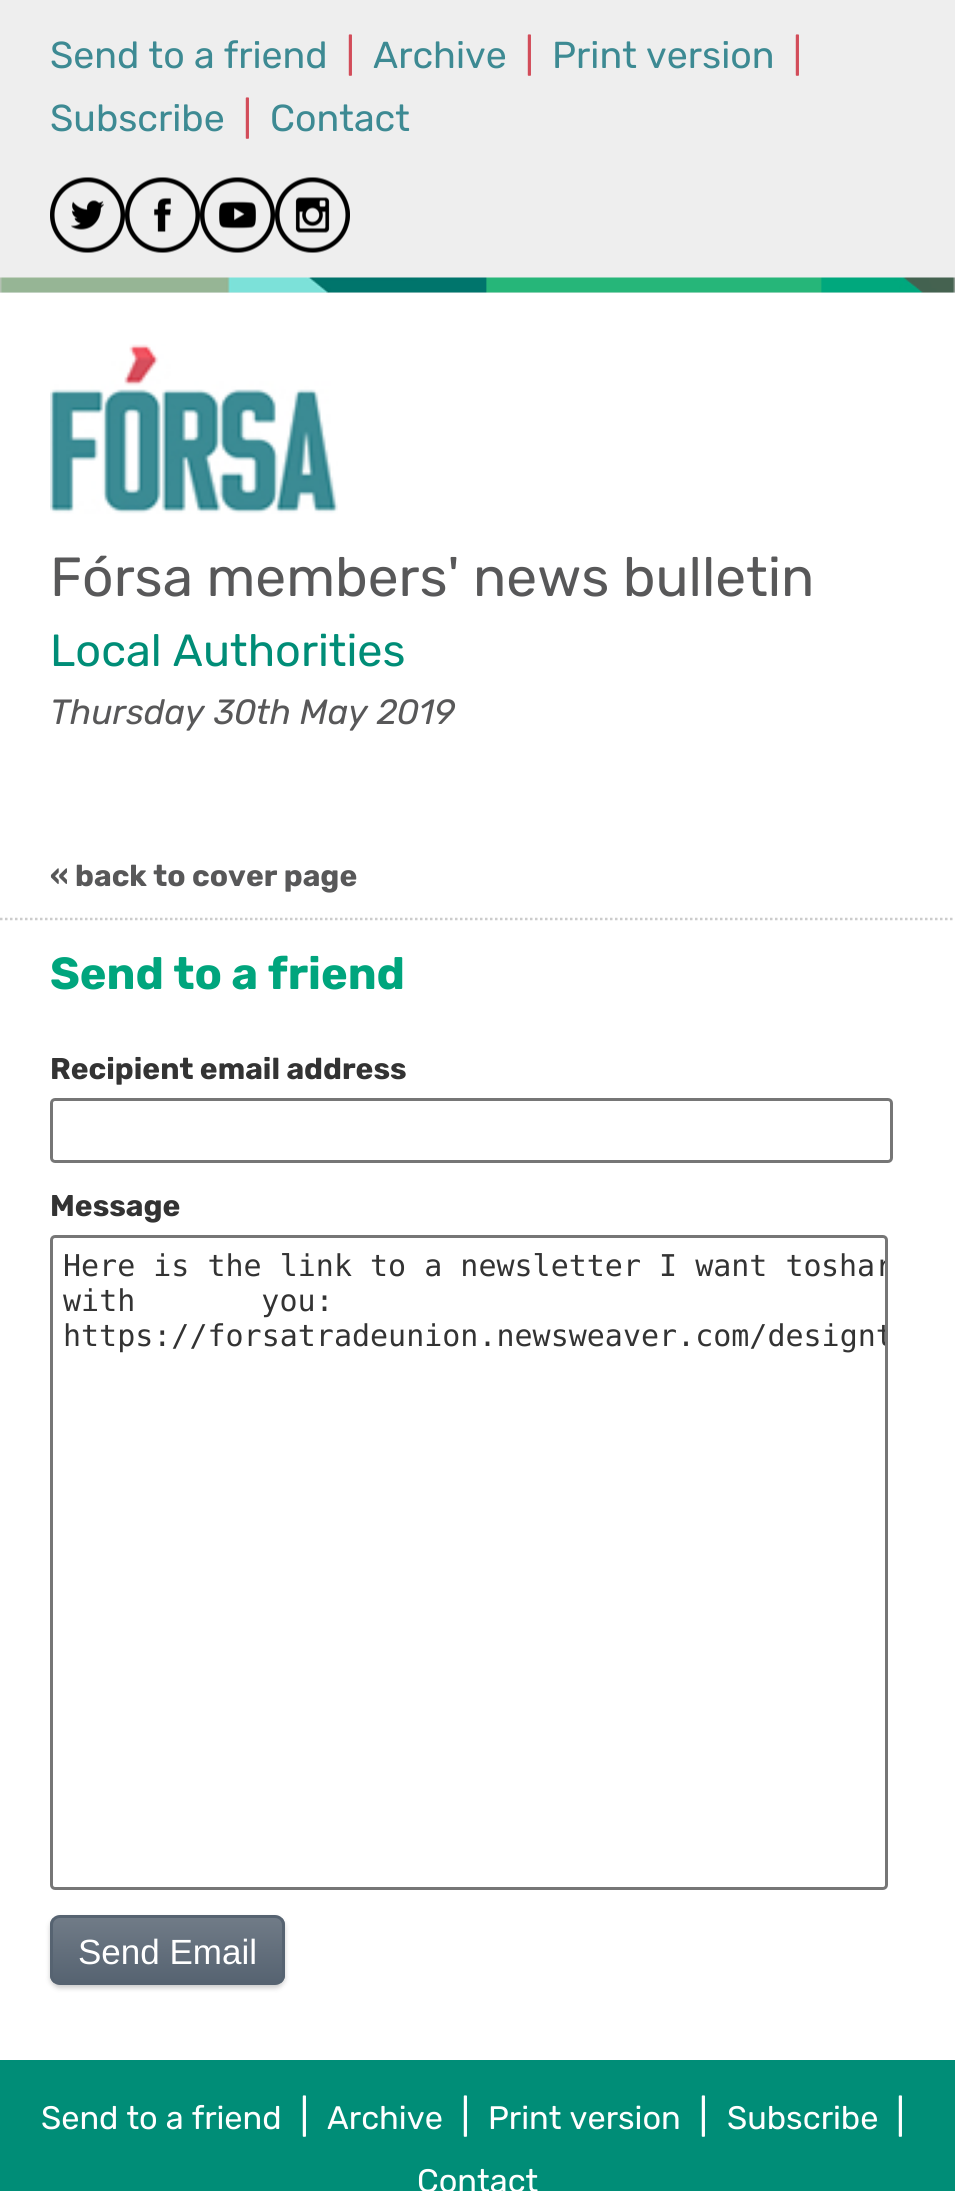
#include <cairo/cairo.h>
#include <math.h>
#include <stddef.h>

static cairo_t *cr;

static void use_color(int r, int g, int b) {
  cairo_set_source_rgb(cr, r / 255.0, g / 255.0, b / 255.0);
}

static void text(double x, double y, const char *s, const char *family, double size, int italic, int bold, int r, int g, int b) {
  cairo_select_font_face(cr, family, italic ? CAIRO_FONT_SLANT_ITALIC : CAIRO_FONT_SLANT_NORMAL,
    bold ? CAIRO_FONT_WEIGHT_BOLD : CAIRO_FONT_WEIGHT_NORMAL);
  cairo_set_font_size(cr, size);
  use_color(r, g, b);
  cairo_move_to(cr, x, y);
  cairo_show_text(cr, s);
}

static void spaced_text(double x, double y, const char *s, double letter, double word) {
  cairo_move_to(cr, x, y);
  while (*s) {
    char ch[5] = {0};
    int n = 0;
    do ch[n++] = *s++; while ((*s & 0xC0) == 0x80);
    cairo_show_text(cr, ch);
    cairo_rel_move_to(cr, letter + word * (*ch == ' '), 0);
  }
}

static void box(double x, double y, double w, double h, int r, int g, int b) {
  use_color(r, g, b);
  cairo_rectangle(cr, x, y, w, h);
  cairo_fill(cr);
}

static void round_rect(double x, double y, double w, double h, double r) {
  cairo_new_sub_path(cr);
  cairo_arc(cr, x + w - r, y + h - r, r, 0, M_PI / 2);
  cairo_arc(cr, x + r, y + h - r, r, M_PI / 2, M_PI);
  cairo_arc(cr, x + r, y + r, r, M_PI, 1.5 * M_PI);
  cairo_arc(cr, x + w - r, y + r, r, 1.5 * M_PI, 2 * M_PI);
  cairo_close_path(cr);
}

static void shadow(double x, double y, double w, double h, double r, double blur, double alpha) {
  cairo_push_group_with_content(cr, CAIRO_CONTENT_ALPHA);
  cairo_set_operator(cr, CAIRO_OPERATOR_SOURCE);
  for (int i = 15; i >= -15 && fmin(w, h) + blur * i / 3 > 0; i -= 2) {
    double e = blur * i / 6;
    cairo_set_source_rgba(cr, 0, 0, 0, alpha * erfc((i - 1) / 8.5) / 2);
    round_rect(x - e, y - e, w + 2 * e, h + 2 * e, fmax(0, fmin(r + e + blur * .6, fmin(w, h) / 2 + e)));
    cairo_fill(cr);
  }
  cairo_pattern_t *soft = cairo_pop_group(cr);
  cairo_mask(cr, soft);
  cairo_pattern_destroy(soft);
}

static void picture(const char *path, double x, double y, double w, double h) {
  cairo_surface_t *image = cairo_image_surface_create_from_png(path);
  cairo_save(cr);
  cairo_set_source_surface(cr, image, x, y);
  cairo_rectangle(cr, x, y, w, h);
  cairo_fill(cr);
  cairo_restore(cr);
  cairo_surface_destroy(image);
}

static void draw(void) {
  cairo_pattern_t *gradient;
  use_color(255, 255, 255);
  cairo_paint(cr);
  box(0, 0, 955, 278, 238, 238, 238);
  picture("img_01.png", 50, 177, 75, 76);
  picture("img_02.png", 125, 177, 75, 76);
  picture("img_03.png", 200, 177, 75, 76);
  picture("img_04.png", 275, 177, 75, 76);
  box(0, 292, 955, 1, 238, 238, 238);
  picture("img_05.png", 0, 277, 955, 16);
  picture("img_06.png", 50, 344, 288, 170);
  cairo_new_path(cr);
  cairo_move_to(cr, 0, 919);
  cairo_line_to(cr, 955, 919);
  use_color(204, 204, 204);
  cairo_set_line_width(cr, 2.5);
  cairo_set_dash(cr, (double[]){2.5, 2.5}, 2, 0);
  cairo_stroke(cr);
  round_rect(51.5, 1099.5, 840, 62, 3.5);
  use_color(118, 118, 118);
  cairo_set_line_width(cr, 3);
  cairo_set_dash(cr, NULL, 0, 0);
  cairo_stroke(cr);
  round_rect(51.5, 1236.5, 835, 652, 3.5);
  cairo_stroke(cr);
  use_color(0, 0, 0);
  shadow(50, 1918, 235, 70, 10, 2.5, 0.2);
  cairo_save(cr);
  round_rect(50, 1915, 235, 70, 10);
  cairo_clip(cr);
  gradient = cairo_pattern_create_linear(168, 1918, 168, 1983);
  cairo_pattern_add_color_stop_rgba(gradient, 0, 0.439, 0.482, 0.529, 1);
  cairo_pattern_add_color_stop_rgba(gradient, 1, 0.337, 0.388, 0.443, 1);
  cairo_set_source(cr, gradient);
  cairo_pattern_destroy(gradient);
  cairo_rectangle(cr, 50, 1918, 235, 65);
  cairo_fill(cr);
  cairo_restore(cr);
  round_rect(51.5, 1916.5, 232, 67, 8.5);
  use_color(86, 99, 113);
  cairo_stroke(cr);
  box(0, 2060, 955, 131, 0, 141, 119);
  text(50, 68, "Send to a friend", "Rubik", 37.5, 0, 0, 61, 138, 147);
  text(346, 68, "|", "Rubik", 37.5, 0, 0, 210, 76, 89);
  text(373, 68, "Archive", "Rubik", 37.5, 0, 0, 61, 138, 147);
  text(525, 68, "|", "Rubik", 37.5, 0, 0, 210, 76, 89);
  text(552, 68, "Print version", "Rubik", 37.5, 0, 0, 61, 138, 147);
  text(793, 68, "|", "Rubik", 37.5, 0, 0, 210, 76, 89);
  text(50, 131, "Subscribe", "Rubik", 37.5, 0, 0, 61, 138, 147);
  text(243, 131, "|", "Rubik", 37.5, 0, 0, 210, 76, 89);
  text(270, 131, "Contact", "Rubik", 37.5, 0, 0, 61, 138, 147);
  text(50, 596, "Fórsa members' news bulletin", "Rubik", 55, 0, 0, 88, 88, 89);
  text(50, 666, "Local Authorities", "Rubik", 45, 0, 0, 0, 141, 119);
  text(50, 724, "Thursday 30th May 2019", "Rubik", 35, 1, 0, 88, 88, 89);
  text(50, 886, "« back to cover page", "Rubik", 30, 0, 1, 88, 88, 89);
  text(50, 989, "Send to a friend", "Rubik", 45, 0, 1, 0, 165, 125);
  text(50, 1079, "Recipient email address", "Rubik", 30, 0, 1, 51, 51, 51);
  text(50, 1216, "Message", "Rubik", 30, 0, 1, 51, 51, 51);
  text(63, 1276, "Here is the link to a newsletter I want to", "DejaVu Sans Mono", 30, 0, 0, 51, 51, 51);
  cairo_save(cr);
  cairo_rectangle(cr, 53, 1238, 832, 650);
  cairo_clip(cr);
  text(821, 1276, "shar", "DejaVu Sans Mono", 30, 0, 0, 51, 51, 51);
  cairo_restore(cr);
  spaced_text(63, 1311, "with you:", 0, 108);
  cairo_save(cr);
  cairo_rectangle(cr, 53, 1238, 832, 650);
  cairo_clip(cr);
  text(63, 1346, "https://forsatradeunion.newsweaver.com/designt", "DejaVu Sans Mono", 30, 0, 0, 51, 51, 51);
  cairo_restore(cr);
  text(78, 1964, "Send Email", "Liberation Sans", 35, 0, 0, 255, 255, 255);
  text(41, 2129, "Send to a friend", "Rubik", 32.5, 0, 0, 255, 255, 255);
  text(300, 2129, "|", "Rubik", 37.5, 0, 0, 255, 255, 255);
  text(327, 2129, "Archive", "Rubik", 32.5, 0, 0, 255, 255, 255);
  text(461, 2129, "|", "Rubik", 37.5, 0, 0, 255, 255, 255);
  text(488, 2129, "Print version", "Rubik", 32.5, 0, 0, 255, 255, 255);
  text(699, 2129, "|", "Rubik", 37.5, 0, 0, 255, 255, 255);
  text(727, 2129, "Subscribe", "Rubik", 32.5, 0, 0, 255, 255, 255);
  text(896, 2129, "|", "Rubik", 37.5, 0, 0, 255, 255, 255);
  text(417, 2192, "Contact", "Rubik", 32.5, 0, 0, 255, 255, 255);
}

int main(void) {
  cairo_surface_t *surface = cairo_image_surface_create(CAIRO_FORMAT_RGB24, 955, 2191);
  cr = cairo_create(surface);
  cairo_font_options_t *options = cairo_font_options_create();
  cairo_font_options_set_hint_metrics(options, CAIRO_HINT_METRICS_OFF);
  cairo_font_options_set_hint_style(options, CAIRO_HINT_STYLE_NONE);
  cairo_set_font_options(cr, options);
  cairo_set_miter_limit(cr, 4);
  draw();
  cairo_surface_write_to_png(surface, "out.png");
  cairo_font_options_destroy(options);
  cairo_destroy(cr);
  cairo_surface_destroy(surface);
  return 0;
}
